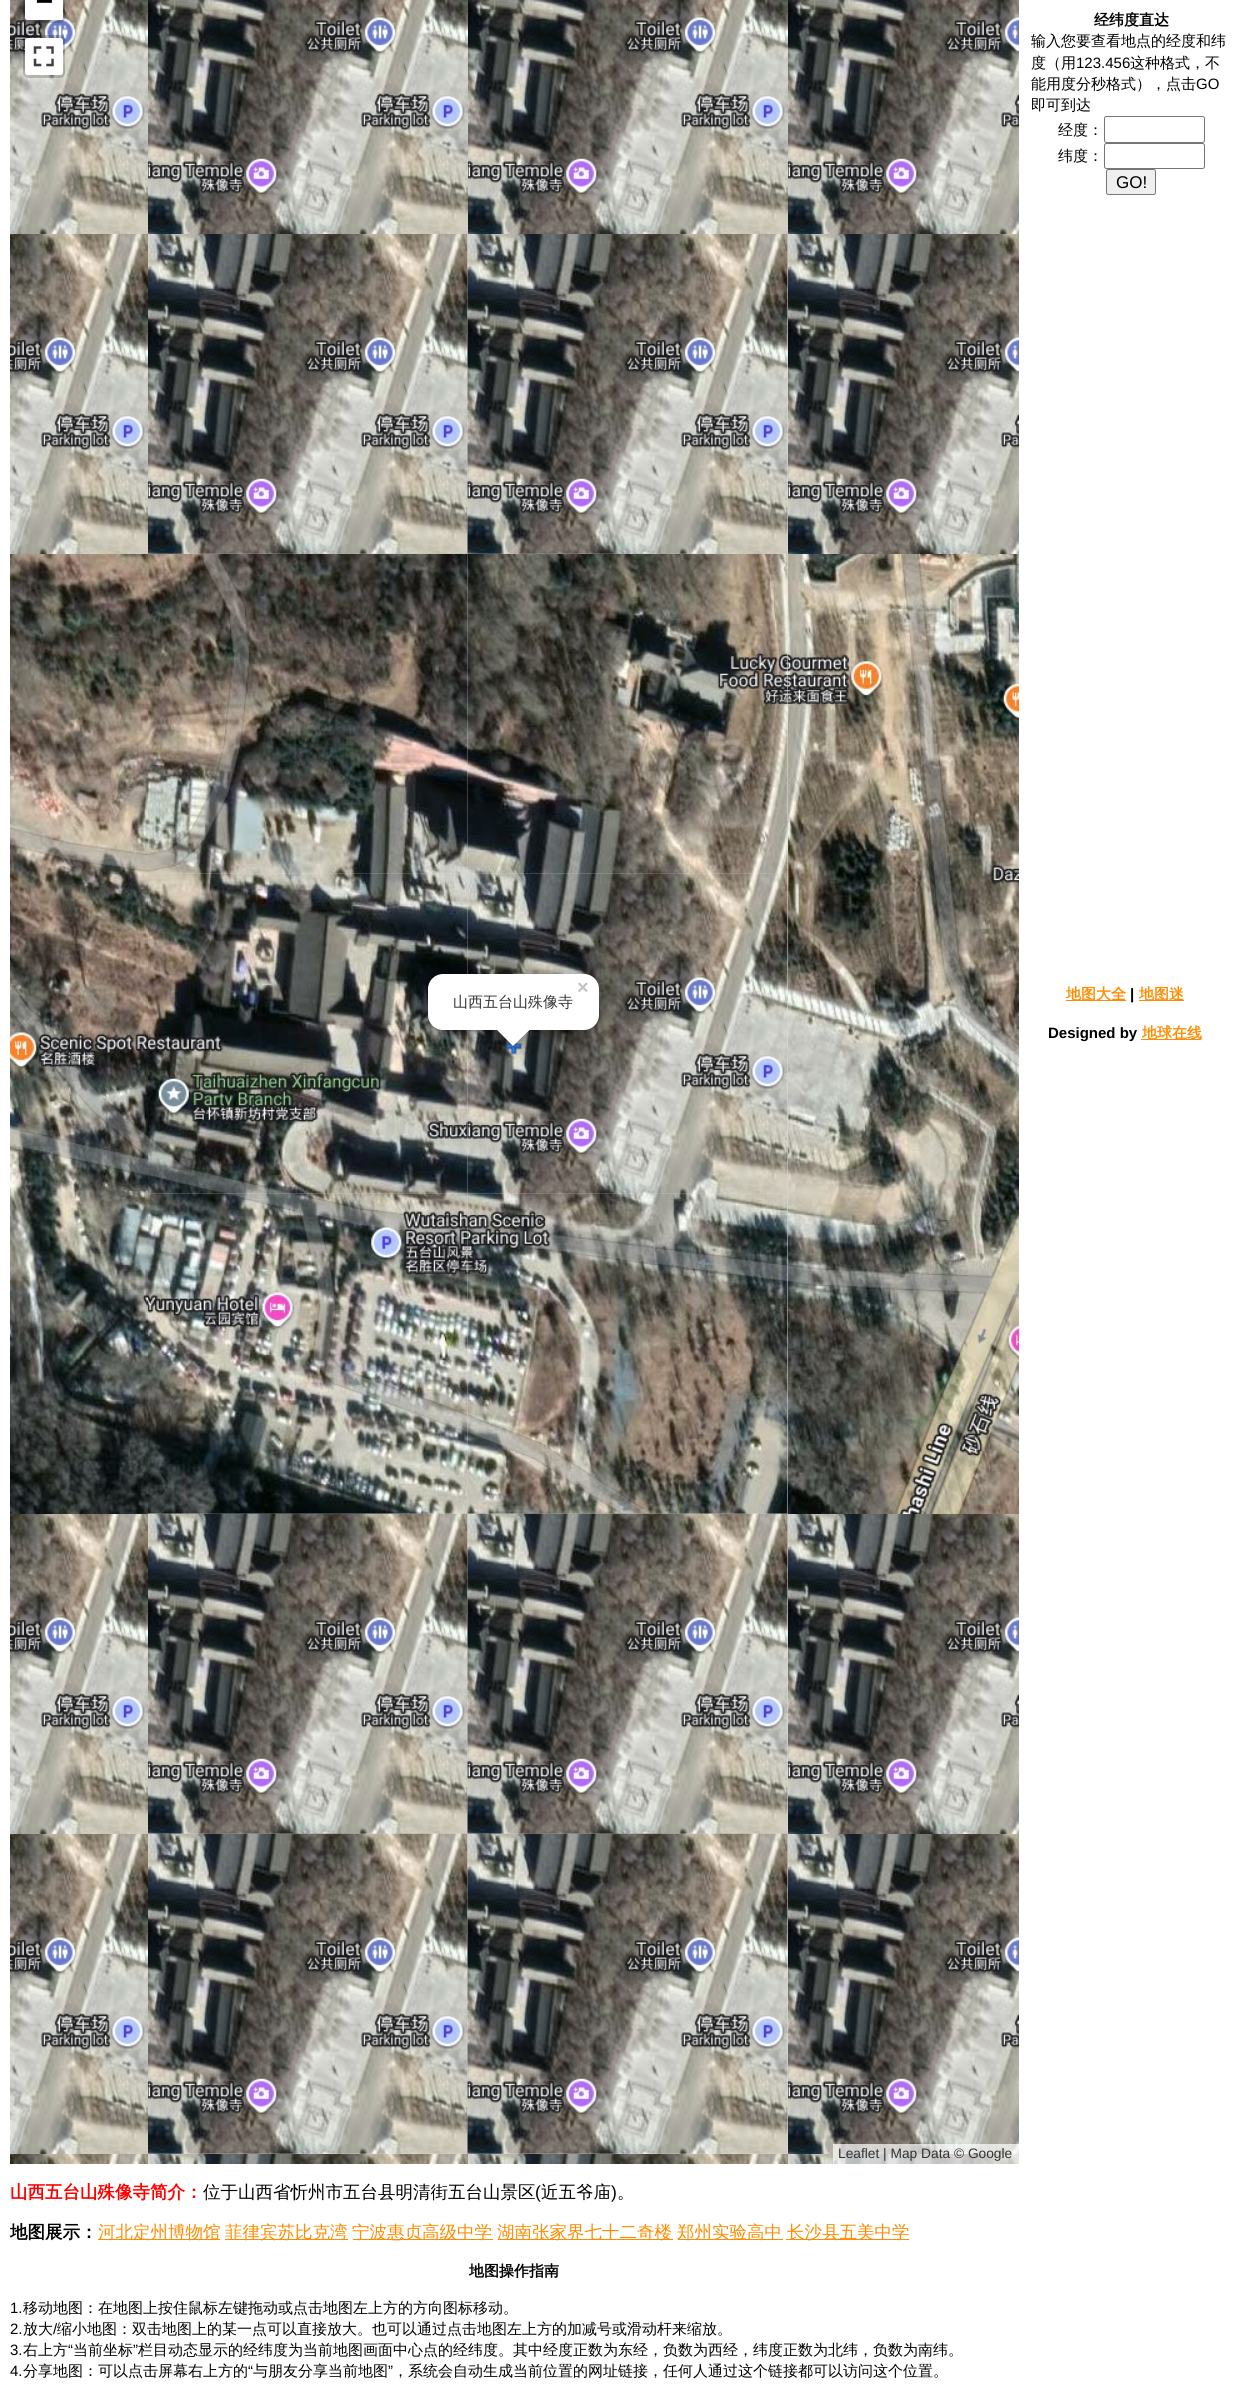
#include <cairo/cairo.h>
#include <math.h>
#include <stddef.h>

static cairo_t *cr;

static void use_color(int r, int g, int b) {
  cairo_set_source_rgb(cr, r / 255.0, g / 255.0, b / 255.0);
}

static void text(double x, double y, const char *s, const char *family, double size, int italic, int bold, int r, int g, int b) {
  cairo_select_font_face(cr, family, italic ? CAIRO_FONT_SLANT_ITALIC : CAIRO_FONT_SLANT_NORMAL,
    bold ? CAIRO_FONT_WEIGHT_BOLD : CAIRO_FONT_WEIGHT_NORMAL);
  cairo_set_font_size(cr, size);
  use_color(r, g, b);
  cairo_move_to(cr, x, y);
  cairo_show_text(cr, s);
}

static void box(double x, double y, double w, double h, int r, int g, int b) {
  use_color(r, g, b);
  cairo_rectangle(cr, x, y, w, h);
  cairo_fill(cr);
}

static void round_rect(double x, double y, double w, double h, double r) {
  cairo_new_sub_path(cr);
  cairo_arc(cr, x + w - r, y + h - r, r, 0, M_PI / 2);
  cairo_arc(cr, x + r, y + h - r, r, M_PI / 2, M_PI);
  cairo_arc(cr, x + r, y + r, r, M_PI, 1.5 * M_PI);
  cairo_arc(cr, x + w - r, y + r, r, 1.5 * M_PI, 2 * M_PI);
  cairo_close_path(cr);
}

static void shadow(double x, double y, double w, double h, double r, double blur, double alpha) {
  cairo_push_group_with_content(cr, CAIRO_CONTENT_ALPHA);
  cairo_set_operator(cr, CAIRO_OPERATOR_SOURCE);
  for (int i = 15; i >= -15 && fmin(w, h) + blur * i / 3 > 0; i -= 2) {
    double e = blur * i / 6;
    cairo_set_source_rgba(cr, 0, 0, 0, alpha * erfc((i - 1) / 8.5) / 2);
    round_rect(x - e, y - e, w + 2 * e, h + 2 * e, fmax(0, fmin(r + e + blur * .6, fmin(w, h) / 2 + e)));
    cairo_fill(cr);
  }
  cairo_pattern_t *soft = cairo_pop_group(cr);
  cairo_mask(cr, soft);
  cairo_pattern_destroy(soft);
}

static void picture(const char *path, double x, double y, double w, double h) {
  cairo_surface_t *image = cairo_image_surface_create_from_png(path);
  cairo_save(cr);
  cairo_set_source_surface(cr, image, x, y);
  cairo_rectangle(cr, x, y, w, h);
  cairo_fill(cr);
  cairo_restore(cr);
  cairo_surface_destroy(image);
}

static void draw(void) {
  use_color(255, 255, 255);
  cairo_paint(cr);
  box(148, 234, 640, 1920, 221, 221, 221);
  picture("img_02.png", 10, 0, 138, 234);
  round_rect(24.5, -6.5, 39, 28, 3.5);
  cairo_set_source_rgba(cr, 0, 0, 0, 0.2);
  cairo_set_line_width(cr, 3);
  cairo_stroke(cr);
  use_color(255, 255, 255);
  cairo_new_path(cr);
  cairo_move_to(cr, 25, -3);
  cairo_line_to(cr, 63, -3);
  cairo_line_to(cr, 63, 17.5);
  cairo_curve_to(cr, 63, 19, 62, 20, 60.5, 20);
  cairo_line_to(cr, 27.5, 20);
  cairo_curve_to(cr, 26, 20, 25, 19, 25, 17.5);
  cairo_close_path(cr);
  cairo_fill(cr);
  round_rect(24.5, 36.5, 39, 40, 3.5);
  cairo_set_source_rgba(cr, 0, 0, 0, 0.2);
  cairo_stroke(cr);
  use_color(255, 255, 255);
  round_rect(25, 38, 38, 37, 2.5);
  cairo_fill(cr);
  picture("img_01.png", 33, 46, 21, 21);
  picture("img_09.png", 788, 1834, 231, 320);
  picture("img_29.png", 788, 2154, 231, 10);
  cairo_set_source_rgba(cr, 1, 1, 1, 0.7);
  cairo_rectangle(cr, 833, 2144, 186, 20);
  cairo_fill(cr);
  picture("img_03.png", 148, 0, 320, 234);
  picture("img_04.png", 468, 0, 320, 234);
  picture("img_05.png", 788, 0, 231, 234);
  picture("img_06.png", 10, 234, 138, 320);
  picture("img_15.png", 148, 873, 320, 321);
  picture("img_16.png", 467, 873, 321, 321);
  picture("img_11.png", 148, 553, 320, 321);
  picture("img_12.png", 467, 553, 321, 321);
  picture("img_07.png", 148, 234, 320, 320);
  picture("img_08.png", 467, 234, 321, 320);
  picture("img_09.png", 788, 234, 231, 320);
  picture("img_10.png", 10, 554, 138, 320);
  picture("img_13.png", 788, 554, 231, 320);
  picture("img_14.png", 10, 874, 138, 320);
  picture("img_17.png", 788, 874, 231, 320);
  picture("img_18.png", 10, 1194, 138, 320);
  picture("img_19.png", 148, 1193, 320, 321);
  picture("img_20.png", 467, 1193, 321, 321);
  picture("img_21.png", 788, 1194, 231, 320);
  picture("img_22.png", 147, 1513, 321, 321);
  picture("img_06.png", 10, 1514, 138, 320);
  picture("img_23.png", 467, 1513, 321, 321);
  picture("img_09.png", 788, 1514, 231, 320);
  picture("img_24.png", 147, 1833, 321, 321);
  picture("img_06.png", 10, 1834, 138, 320);
  picture("img_25.png", 467, 1833, 321, 321);
  picture("img_26.png", 10, 2154, 138, 10);
  picture("img_27.png", 148, 2154, 320, 10);
  picture("img_28.png", 468, 2154, 320, 10);
  picture("img_30.png", 505, 1042, 17, 13);
  use_color(0, 0, 0);
  shadow(428, 978, 171, 56, 15, 9, 0.4);
  use_color(255, 255, 255);
  round_rect(428, 974, 171, 56, 15);
  cairo_fill(cr);
  cairo_save(cr);
  cairo_rectangle(cr, 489, 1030, 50, 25);
  cairo_clip(cr);
  use_color(0, 0, 0);
  shadow(501, 1021, 24, 24, 0, 9, 0.4);
  cairo_restore(cr);
  cairo_save(cr);
  cairo_rectangle(cr, 489, 1030, 50, 25);
  cairo_clip(cr);
  cairo_new_path(cr);
  cairo_move_to(cr, 513, 1012.5);
  cairo_line_to(cr, 530, 1029.5);
  cairo_line_to(cr, 513, 1046);
  cairo_line_to(cr, 496.5, 1029.5);
  cairo_close_path(cr);
  cairo_fill(cr);
  cairo_restore(cr);
  box(98, 2239, 122, 1, 255, 140, 0);
  box(225, 2239, 123, 1, 255, 140, 0);
  box(353, 2239, 140, 1, 255, 140, 0);
  box(498, 2239, 175, 1, 255, 140, 0);
  box(678, 2239, 105, 1, 255, 140, 0);
  box(786, 2239, 123, 1, 255, 140, 0);
  round_rect(1104.5, 116.5, 100, 26, 2);
  use_color(118, 118, 118);
  cairo_set_line_width(cr, 1);
  cairo_stroke(cr);
  round_rect(1104.5, 143.5, 100, 25, 2);
  cairo_stroke(cr);
  use_color(239, 239, 239);
  round_rect(1106.5, 169.5, 49, 25, 2);
  cairo_fill_preserve(cr);
  use_color(118, 118, 118);
  cairo_stroke(cr);
  box(1066, 1000, 60, 1, 255, 140, 0);
  box(1139, 1000, 45, 1, 255, 140, 0);
  box(1141, 1039, 60, 1, 255, 140, 0);
  text(36, 10, "−", "DejaVu Sans Mono", 28, 0, 1, 0, 0, 0);
  text(838, 2158, "Leaflet | Map Data © Google", "Liberation Sans", 13.75, 0, 0, 51, 51, 51);
  text(577, 994, "×", "Liberation Sans", 20, 0, 1, 195, 195, 195);
  text(453, 1007, "山西五台山殊像寺", "WenQuanYi Zen Hei Medium", 15, 0, 0, 51, 51, 51);
  text(10, 2198, "山西五台山殊像寺简介：", "WenQuanYi Zen Hei", 17.5, 0, 1, 255, 0, 0);
  text(203, 2198, "位于山西省忻州市五台县明清街五台山景区", "WenQuanYi Zen Hei Medium", 17.5, 0, 0, 0, 0, 0);
  text(535, 2198, "(", "Liberation Sans", 17.5, 0, 0, 0, 0, 0);
  text(541, 2198, "近五爷庙", "WenQuanYi Zen Hei Medium", 17.5, 0, 0, 0, 0, 0);
  text(611, 2198, ")", "Liberation Sans", 17.5, 0, 0, 0, 0, 0);
  text(617, 2198, "。", "WenQuanYi Zen Hei Medium", 17.5, 0, 0, 0, 0, 0);
  text(10, 2238, "地图展示：", "WenQuanYi Zen Hei", 17.5, 0, 1, 0, 0, 0);
  text(98, 2238, "河北定州博物馆", "WenQuanYi Zen Hei Medium", 17.5, 0, 0, 255, 140, 0);
  text(225, 2238, "菲律宾苏比克湾", "WenQuanYi Zen Hei Medium", 17.5, 0, 0, 255, 140, 0);
  text(352, 2238, "宁波惠贞高级中学", "WenQuanYi Zen Hei Medium", 17.5, 0, 0, 255, 140, 0);
  text(497, 2238, "湖南张家界七十二奇楼", "WenQuanYi Zen Hei Medium", 17.5, 0, 0, 255, 140, 0);
  text(677, 2238, "郑州实验高中", "WenQuanYi Zen Hei Medium", 17.5, 0, 0, 255, 140, 0);
  text(787, 2238, "长沙县五美中学", "WenQuanYi Zen Hei Medium", 17.5, 0, 0, 255, 140, 0);
  text(469, 2276, "地图操作指南", "WenQuanYi Zen Hei", 15, 0, 1, 0, 0, 0);
  text(10, 2313, "1.", "Liberation Sans", 15, 0, 0, 0, 0, 0);
  text(23, 2313, "移动地图：在地图上按住鼠标左键拖动或点击地图左上方的方向图标移动。", "WenQuanYi Zen Hei Medium", 15, 0, 0, 0, 0, 0);
  text(10, 2334, "2.", "Liberation Sans", 15, 0, 0, 0, 0, 0);
  text(23, 2334, "放大", "WenQuanYi Zen Hei Medium", 15, 0, 0, 0, 0, 0);
  text(53, 2334, "/", "Liberation Sans", 15, 0, 0, 0, 0, 0);
  text(57, 2334, "缩小地图：双击地图上的某一点可以直接放大。也可以通过点击地图左上方的加减号或滑动杆来缩放。", "WenQuanYi Zen Hei Medium", 15, 0, 0, 0, 0, 0);
  text(10, 2355, "3.", "Liberation Sans", 15, 0, 0, 0, 0, 0);
  text(23, 2355, "右上方", "WenQuanYi Zen Hei Medium", 15, 0, 0, 0, 0, 0);
  text(68, 2355, "“", "Liberation Sans", 15, 0, 0, 0, 0, 0);
  text(73, 2355, "当前坐标", "WenQuanYi Zen Hei Medium", 15, 0, 0, 0, 0, 0);
  text(133, 2355, "”", "Liberation Sans", 15, 0, 0, 0, 0, 0);
  text(138, 2355, "栏目动态显示的经纬度为当前地图画面中心点的经纬度。其中经度正数为东经，负数为西经，纬度正数为北纬，负数为南纬。", "WenQuanYi Zen Hei Medium", 15, 0, 0, 0, 0, 0);
  text(10, 2376, "4.", "Liberation Sans", 15, 0, 0, 0, 0, 0);
  text(23, 2376, "分享地图：可以点击屏幕右上方的", "WenQuanYi Zen Hei Medium", 15, 0, 0, 0, 0, 0);
  text(248, 2376, "“", "Liberation Sans", 15, 0, 0, 0, 0, 0);
  text(253, 2376, "与朋友分享当前地图", "WenQuanYi Zen Hei Medium", 15, 0, 0, 0, 0, 0);
  text(388, 2376, "”", "Liberation Sans", 15, 0, 0, 0, 0, 0);
  text(393, 2376, "，系统会自动生成当前位置的网址链接，任何人通过这个链接都可以访问这个位置。", "WenQuanYi Zen Hei Medium", 15, 0, 0, 0, 0, 0);
  text(1094, 25, "经纬度直达", "WenQuanYi Zen Hei", 15, 0, 1, 0, 0, 0);
  text(1031, 46, "输入您要查看地点的经度和纬", "WenQuanYi Zen Hei Medium", 15, 0, 0, 0, 0, 0);
  text(1031, 68, "度（用", "WenQuanYi Zen Hei Medium", 15, 0, 0, 0, 0, 0);
  text(1076, 68, "123.456", "Liberation Sans", 15, 0, 0, 0, 0, 0);
  text(1130, 68, "这种格式，不", "WenQuanYi Zen Hei Medium", 15, 0, 0, 0, 0, 0);
  text(1031, 89, "能用度分秒格式），点击", "WenQuanYi Zen Hei Medium", 15, 0, 0, 0, 0, 0);
  text(1196, 89, "GO", "Liberation Sans", 15, 0, 0, 0, 0, 0);
  text(1031, 110, "即可到达", "WenQuanYi Zen Hei Medium", 15, 0, 0, 0, 0, 0);
  text(1058, 135, "经度：", "WenQuanYi Zen Hei Medium", 15, 0, 0, 0, 0, 0);
  text(1058, 161, "纬度：", "WenQuanYi Zen Hei Medium", 15, 0, 0, 0, 0, 0);
  text(1116, 188, "GO!", "Liberation Sans", 17, 0, 0, 0, 0, 0);
  text(1066, 999, "地图大全", "WenQuanYi Zen Hei", 15, 0, 1, 255, 140, 0);
  text(1130, 999, "|", "Liberation Sans", 15, 0, 1, 0, 0, 0);
  text(1139, 999, "地图迷", "WenQuanYi Zen Hei", 15, 0, 1, 255, 140, 0);
  text(1048, 1038, "Designed by", "Liberation Sans", 15, 0, 1, 0, 0, 0);
  text(1142, 1038, "地球在线", "WenQuanYi Zen Hei", 15, 0, 1, 255, 140, 0);
}

int main(void) {
  cairo_surface_t *surface = cairo_image_surface_create(CAIRO_FORMAT_RGB24, 1241, 2397);
  cr = cairo_create(surface);
  cairo_font_options_t *options = cairo_font_options_create();
  cairo_font_options_set_hint_metrics(options, CAIRO_HINT_METRICS_OFF);
  cairo_font_options_set_hint_style(options, CAIRO_HINT_STYLE_NONE);
  cairo_set_font_options(cr, options);
  cairo_set_miter_limit(cr, 4);
  draw();
  cairo_surface_write_to_png(surface, "out.png");
  cairo_font_options_destroy(options);
  cairo_destroy(cr);
  cairo_surface_destroy(surface);
  return 0;
}
